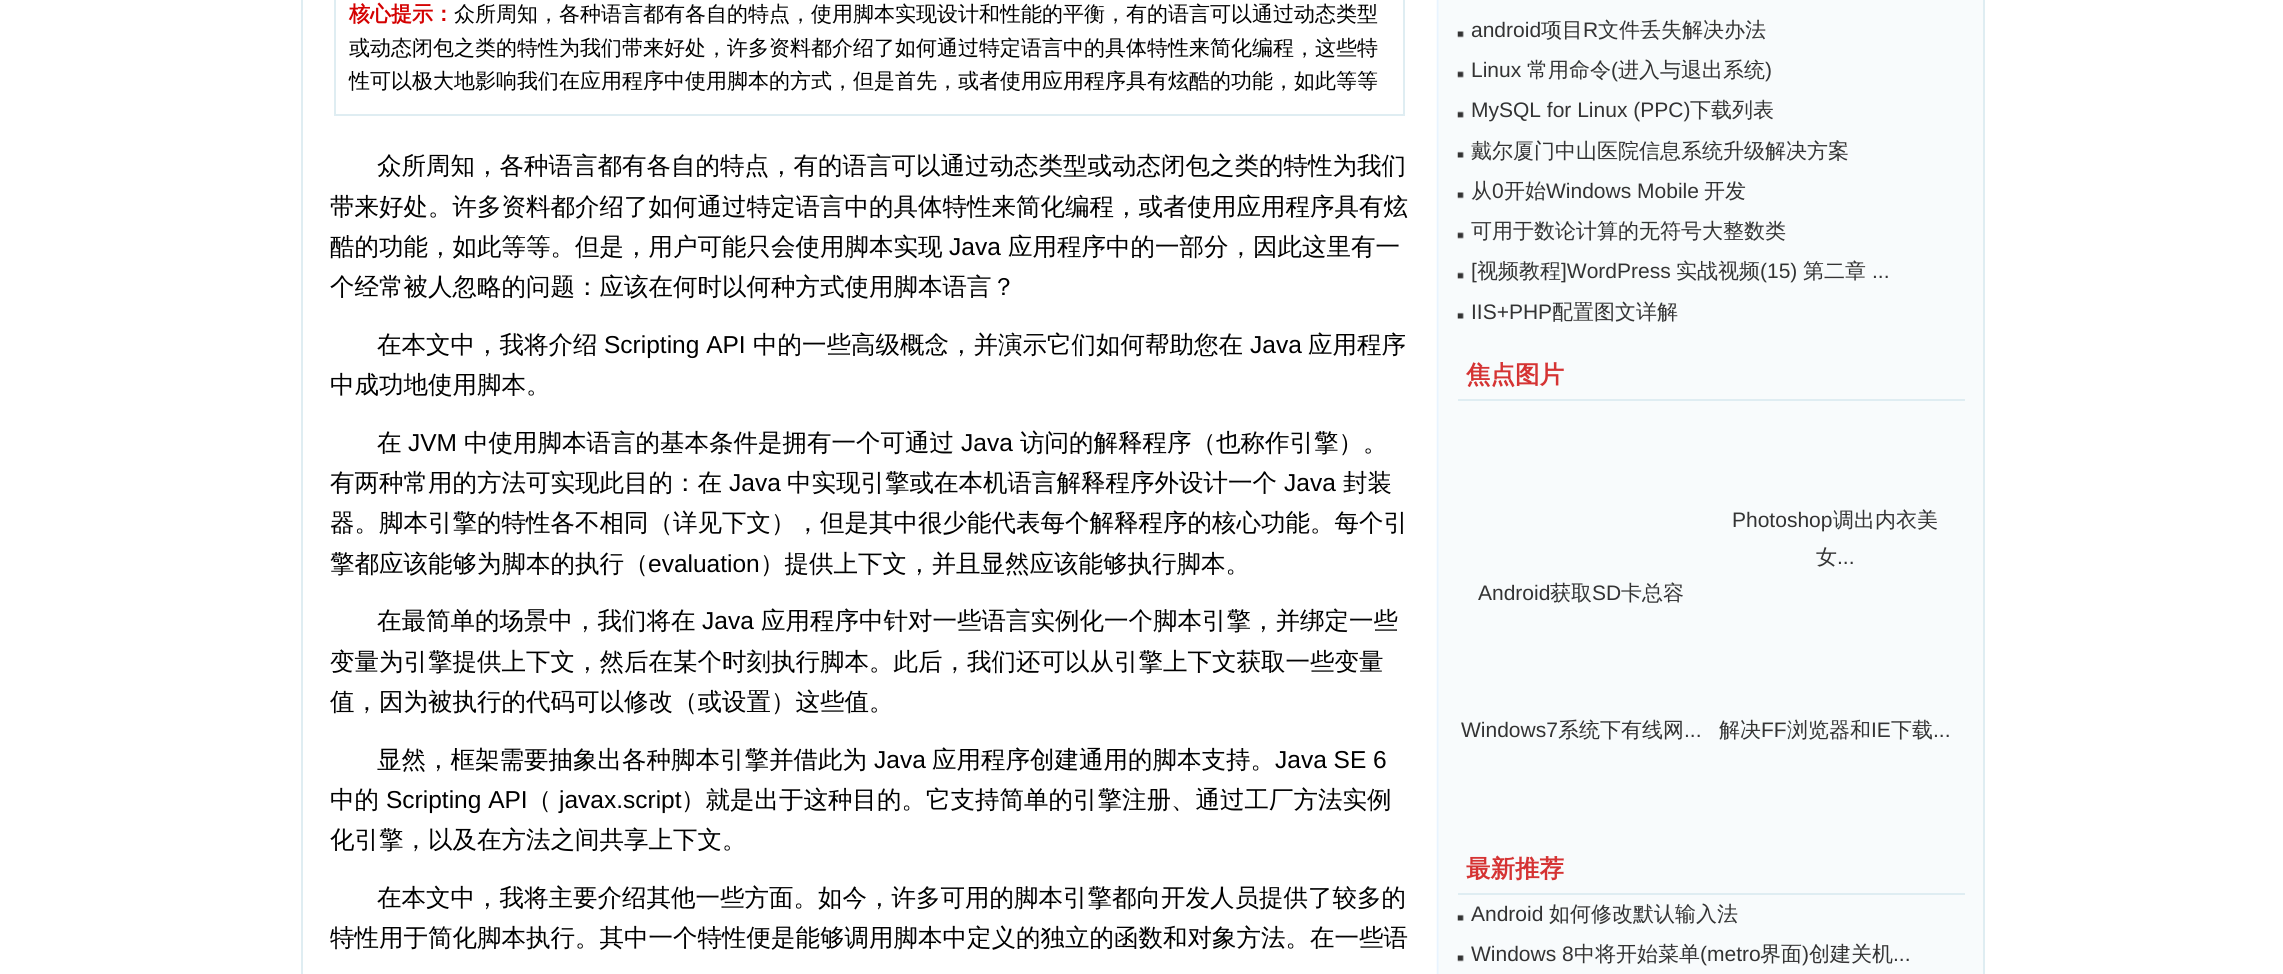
#include <cairo/cairo.h>
#include <math.h>
#include <stddef.h>

static cairo_t *cr;

static void use_color(int r, int g, int b) {
  cairo_set_source_rgb(cr, r / 255.0, g / 255.0, b / 255.0);
}

static void text(double x, double y, const char *s, const char *family, double size, int italic, int bold, int r, int g, int b) {
  cairo_select_font_face(cr, family, italic ? CAIRO_FONT_SLANT_ITALIC : CAIRO_FONT_SLANT_NORMAL,
    bold ? CAIRO_FONT_WEIGHT_BOLD : CAIRO_FONT_WEIGHT_NORMAL);
  cairo_set_font_size(cr, size);
  use_color(r, g, b);
  cairo_move_to(cr, x, y);
  cairo_show_text(cr, s);
}

static void box(double x, double y, double w, double h, int r, int g, int b) {
  use_color(r, g, b);
  cairo_rectangle(cr, x, y, w, h);
  cairo_fill(cr);
}

static void picture(const char *path, double x, double y, double w, double h) {
  cairo_surface_t *image = cairo_image_surface_create_from_png(path);
  cairo_save(cr);
  cairo_set_source_surface(cr, image, x, y);
  cairo_rectangle(cr, x, y, w, h);
  cairo_fill(cr);
  cairo_restore(cr);
  cairo_surface_destroy(image);
}

static void draw(void) {
  use_color(255, 255, 255);
  cairo_paint(cr);
  picture("img_01.png", 1436, 0, 547, 974);
  cairo_rectangle(cr, 302, -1, 1682, 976);
  use_color(223, 237, 242);
  cairo_stroke(cr);
  cairo_rectangle(cr, 335, -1, 1069, 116);
  cairo_stroke(cr);
  picture("img_02.png", 1457, 31, 7, 7);
  picture("img_03.png", 1457, 71, 7, 7);
  picture("img_04.png", 1457, 111, 7, 7);
  picture("img_05.png", 1457, 151, 7, 7);
  picture("img_02.png", 1457, 192, 7, 7);
  picture("img_03.png", 1457, 232, 7, 7);
  picture("img_04.png", 1457, 272, 7, 7);
  picture("img_05.png", 1457, 312, 7, 7);
  box(1458, 399, 507, 2, 223, 237, 242);
  box(1458, 893, 507, 2, 223, 237, 242);
  picture("img_05.png", 1457, 914, 7, 7);
  picture("img_02.png", 1457, 955, 7, 7);
  text(349, 21, "核心提示：", "WenQuanYi Zen Hei", 21, 0, 1, 212, 1, 1);
  text(454, 21, "众所周知，各种语言都有各自的特点，使用脚本实现设计和性能的平衡，有的语言可以通过动态类型", "WenQuanYi Zen Hei Medium", 21, 0, 0, 0, 0, 0);
  text(349, 55, "或动态闭包之类的特性为我们带来好处，许多资料都介绍了如何通过特定语言中的具体特性来简化编程，这些特", "WenQuanYi Zen Hei Medium", 21, 0, 0, 0, 0, 0);
  text(349, 88, "性可以极大地影响我们在应用程序中使用脚本的方式，但是首先，或者使用应用程序具有炫酷的功能，如此等等", "WenQuanYi Zen Hei Medium", 21, 0, 0, 0, 0, 0);
  text(377, 174, "众所周知，各种语言都有各自的特点，有的语言可以通过动态类型或动态闭包之类的特性为我们", "WenQuanYi Zen Hei Medium", 24.5, 0, 0, 0, 0, 0);
  text(330, 215, "带来好处。许多资料都介绍了如何通过特定语言中的具体特性来简化编程，或者使用应用程序具有炫", "WenQuanYi Zen Hei Medium", 24.5, 0, 0, 0, 0, 0);
  text(330, 255, "酷的功能，如此等等。但是，用户可能只会使用脚本实现", "WenQuanYi Zen Hei Medium", 24.5, 0, 0, 0, 0, 0);
  text(949, 255, "Java", "Liberation Sans", 24.5, 0, 0, 0, 0, 0);
  text(1008, 255, "应用程序中的一部分，因此这里有一", "WenQuanYi Zen Hei Medium", 24.5, 0, 0, 0, 0, 0);
  text(330, 295, "个经常被人忽略的问题：应该在何时以何种方式使用脚本语言？", "WenQuanYi Zen Hei Medium", 24.5, 0, 0, 0, 0, 0);
  text(377, 353, "在本文中，我将介绍", "WenQuanYi Zen Hei Medium", 24.5, 0, 0, 0, 0, 0);
  text(604, 353, "Scripting API", "Liberation Sans", 24.5, 0, 0, 0, 0, 0);
  text(753, 353, "中的一些高级概念，并演示它们如何帮助您在", "WenQuanYi Zen Hei Medium", 24.5, 0, 0, 0, 0, 0);
  text(1250, 353, "Java", "Liberation Sans", 24.5, 0, 0, 0, 0, 0);
  text(1308, 353, "应用程序", "WenQuanYi Zen Hei Medium", 24.5, 0, 0, 0, 0, 0);
  text(330, 393, "中成功地使用脚本。", "WenQuanYi Zen Hei Medium", 24.5, 0, 0, 0, 0, 0);
  text(377, 451, "在", "WenQuanYi Zen Hei Medium", 24.5, 0, 0, 0, 0, 0);
  text(408, 451, "JVM", "Liberation Sans", 24.5, 0, 0, 0, 0, 0);
  text(464, 451, "中使用脚本语言的基本条件是拥有一个可通过", "WenQuanYi Zen Hei Medium", 24.5, 0, 0, 0, 0, 0);
  text(961, 451, "Java", "Liberation Sans", 24.5, 0, 0, 0, 0, 0);
  text(1020, 451, "访问的解释程序（也称作引擎）。", "WenQuanYi Zen Hei Medium", 24.5, 0, 0, 0, 0, 0);
  text(330, 491, "有两种常用的方法可实现此目的：在", "WenQuanYi Zen Hei Medium", 24.5, 0, 0, 0, 0, 0);
  text(729, 491, "Java", "Liberation Sans", 24.5, 0, 0, 0, 0, 0);
  text(787, 491, "中实现引擎或在本机语言解释程序外设计一个", "WenQuanYi Zen Hei Medium", 24.5, 0, 0, 0, 0, 0);
  text(1284, 491, "Java", "Liberation Sans", 24.5, 0, 0, 0, 0, 0);
  text(1343, 491, "封装", "WenQuanYi Zen Hei Medium", 24.5, 0, 0, 0, 0, 0);
  text(330, 531, "器。脚本引擎的特性各不相同（详见下文），但是其中很少能代表每个解释程序的核心功能。每个引", "WenQuanYi Zen Hei Medium", 24.5, 0, 0, 0, 0, 0);
  text(330, 572, "擎都应该能够为脚本的执行（", "WenQuanYi Zen Hei Medium", 24.5, 0, 0, 0, 0, 0);
  text(648, 572, "evaluation", "Liberation Sans", 24.5, 0, 0, 0, 0, 0);
  text(760, 572, "）提供上下文，并且显然应该能够执行脚本。", "WenQuanYi Zen Hei Medium", 24.5, 0, 0, 0, 0, 0);
  text(377, 629, "在最简单的场景中，我们将在", "WenQuanYi Zen Hei Medium", 24.5, 0, 0, 0, 0, 0);
  text(702, 629, "Java", "Liberation Sans", 24.5, 0, 0, 0, 0, 0);
  text(761, 629, "应用程序中针对一些语言实例化一个脚本引擎，并绑定一些", "WenQuanYi Zen Hei Medium", 24.5, 0, 0, 0, 0, 0);
  text(330, 670, "变量为引擎提供上下文，然后在某个时刻执行脚本。此后，我们还可以从引擎上下文获取一些变量", "WenQuanYi Zen Hei Medium", 24.5, 0, 0, 0, 0, 0);
  text(330, 710, "值，因为被执行的代码可以修改（或设置）这些值。", "WenQuanYi Zen Hei Medium", 24.5, 0, 0, 0, 0, 0);
  text(377, 768, "显然，框架需要抽象出各种脚本引擎并借此为", "WenQuanYi Zen Hei Medium", 24.5, 0, 0, 0, 0, 0);
  text(874, 768, "Java", "Liberation Sans", 24.5, 0, 0, 0, 0, 0);
  text(932, 768, "应用程序创建通用的脚本支持。", "WenQuanYi Zen Hei Medium", 24.5, 0, 0, 0, 0, 0);
  text(1275, 768, "Java SE 6", "Liberation Sans", 24.5, 0, 0, 0, 0, 0);
  text(330, 808, "中的", "WenQuanYi Zen Hei Medium", 24.5, 0, 0, 0, 0, 0);
  text(386, 808, "Scripting API", "Liberation Sans", 24.5, 0, 0, 0, 0, 0);
  text(527, 808, "（", "WenQuanYi Zen Hei Medium", 24.5, 0, 0, 0, 0, 0);
  text(559, 808, "javax.script", "Liberation Sans", 24.5, 0, 0, 0, 0, 0);
  text(681, 808, "）就是出于这种目的。它支持简单的引擎注册、通过工厂方法实例", "WenQuanYi Zen Hei Medium", 24.5, 0, 0, 0, 0, 0);
  text(330, 848, "化引擎，以及在方法之间共享上下文。", "WenQuanYi Zen Hei Medium", 24.5, 0, 0, 0, 0, 0);
  text(377, 906, "在本文中，我将主要介绍其他一些方面。如今，许多可用的脚本引擎都向开发人员提供了较多的", "WenQuanYi Zen Hei Medium", 24.5, 0, 0, 0, 0, 0);
  text(330, 946, "特性用于简化脚本执行。其中一个特性便是能够调用脚本中定义的独立的函数和对象方法。在一些语", "WenQuanYi Zen Hei Medium", 24.5, 0, 0, 0, 0, 0);
  text(1471, 37, "android", "Liberation Sans", 21, 0, 0, 51, 51, 51);
  text(1541, 37, "项目", "WenQuanYi Zen Hei Medium", 21, 0, 0, 51, 51, 51);
  text(1583, 37, "R", "Liberation Sans", 21, 0, 0, 51, 51, 51);
  text(1598, 37, "文件丢失解决办法", "WenQuanYi Zen Hei Medium", 21, 0, 0, 51, 51, 51);
  text(1471, 77, "Linux", "Liberation Sans", 21, 0, 0, 51, 51, 51);
  text(1527, 77, "常用命令", "WenQuanYi Zen Hei Medium", 21, 0, 0, 51, 51, 51);
  text(1611, 77, "(", "Liberation Sans", 21, 0, 0, 51, 51, 51);
  text(1618, 77, "进入与退出系统", "WenQuanYi Zen Hei Medium", 21, 0, 0, 51, 51, 51);
  text(1765, 77, ")", "Liberation Sans", 21, 0, 0, 51, 51, 51);
  text(1471, 117, "MySQL for Linux (PPC)", "Liberation Sans", 21, 0, 0, 51, 51, 51);
  text(1690, 117, "下载列表", "WenQuanYi Zen Hei Medium", 21, 0, 0, 51, 51, 51);
  text(1471, 158, "戴尔厦门中山医院信息系统升级解决方案", "WenQuanYi Zen Hei Medium", 21, 0, 0, 51, 51, 51);
  text(1471, 198, "从", "WenQuanYi Zen Hei Medium", 21, 0, 0, 51, 51, 51);
  text(1492, 198, "0", "Liberation Sans", 21, 0, 0, 51, 51, 51);
  text(1504, 198, "开始", "WenQuanYi Zen Hei Medium", 21, 0, 0, 51, 51, 51);
  text(1546, 198, "Windows Mobile", "Liberation Sans", 21, 0, 0, 51, 51, 51);
  text(1704, 198, "开发", "WenQuanYi Zen Hei Medium", 21, 0, 0, 51, 51, 51);
  text(1471, 238, "可用于数论计算的无符号大整数类", "WenQuanYi Zen Hei Medium", 21, 0, 0, 51, 51, 51);
  text(1471, 278, "[", "Liberation Sans", 21, 0, 0, 51, 51, 51);
  text(1477, 278, "视频教程", "WenQuanYi Zen Hei Medium", 21, 0, 0, 51, 51, 51);
  text(1561, 278, "]WordPress", "Liberation Sans", 21, 0, 0, 51, 51, 51);
  text(1676, 278, "实战视频", "WenQuanYi Zen Hei Medium", 21, 0, 0, 51, 51, 51);
  text(1760, 278, "(15)", "Liberation Sans", 21, 0, 0, 51, 51, 51);
  text(1803, 278, "第二章", "WenQuanYi Zen Hei Medium", 21, 0, 0, 51, 51, 51);
  text(1872, 278, "...", "Liberation Sans", 21, 0, 0, 51, 51, 51);
  text(1471, 319, "IIS+PHP", "Liberation Sans", 21, 0, 0, 51, 51, 51);
  text(1552, 319, "配置图文详解", "WenQuanYi Zen Hei Medium", 21, 0, 0, 51, 51, 51);
  text(1466, 383, "焦点图片", "WenQuanYi Zen Hei", 24.5, 0, 1, 213, 51, 51);
  text(1732, 527, "Photoshop", "Liberation Sans", 21, 0, 0, 51, 51, 51);
  text(1833, 527, "调出内衣美", "WenQuanYi Zen Hei Medium", 21, 0, 0, 51, 51, 51);
  text(1816, 564, "女", "WenQuanYi Zen Hei Medium", 21, 0, 0, 51, 51, 51);
  text(1837, 564, "...", "Liberation Sans", 21, 0, 0, 51, 51, 51);
  text(1478, 600, "Android", "Liberation Sans", 21, 0, 0, 51, 51, 51);
  text(1550, 600, "获取", "WenQuanYi Zen Hei Medium", 21, 0, 0, 51, 51, 51);
  text(1592, 600, "SD", "Liberation Sans", 21, 0, 0, 51, 51, 51);
  text(1621, 600, "卡总容", "WenQuanYi Zen Hei Medium", 21, 0, 0, 51, 51, 51);
  text(1461, 737, "Windows7", "Liberation Sans", 21, 0, 0, 51, 51, 51);
  text(1558, 737, "系统下有线网", "WenQuanYi Zen Hei Medium", 21, 0, 0, 51, 51, 51);
  text(1684, 737, "...", "Liberation Sans", 21, 0, 0, 51, 51, 51);
  text(1719, 737, "解决", "WenQuanYi Zen Hei Medium", 21, 0, 0, 51, 51, 51);
  text(1761, 737, "FF", "Liberation Sans", 21, 0, 0, 51, 51, 51);
  text(1787, 737, "浏览器和", "WenQuanYi Zen Hei Medium", 21, 0, 0, 51, 51, 51);
  text(1871, 737, "IE", "Liberation Sans", 21, 0, 0, 51, 51, 51);
  text(1891, 737, "下载", "WenQuanYi Zen Hei Medium", 21, 0, 0, 51, 51, 51);
  text(1933, 737, "...", "Liberation Sans", 21, 0, 0, 51, 51, 51);
  text(1466, 877, "最新推荐", "WenQuanYi Zen Hei", 24.5, 0, 1, 213, 51, 51);
  text(1471, 921, "Android", "Liberation Sans", 21, 0, 0, 51, 51, 51);
  text(1549, 921, "如何修改默认输入法", "WenQuanYi Zen Hei Medium", 21, 0, 0, 51, 51, 51);
  text(1471, 961, "Windows 8", "Liberation Sans", 21, 0, 0, 51, 51, 51);
  text(1574, 961, "中将开始菜单", "WenQuanYi Zen Hei Medium", 21, 0, 0, 51, 51, 51);
  text(1700, 961, "(metro", "Liberation Sans", 21, 0, 0, 51, 51, 51);
  text(1760, 961, "界面", "WenQuanYi Zen Hei Medium", 21, 0, 0, 51, 51, 51);
  text(1802, 961, ")", "Liberation Sans", 21, 0, 0, 51, 51, 51);
  text(1809, 961, "创建关机", "WenQuanYi Zen Hei Medium", 21, 0, 0, 51, 51, 51);
  text(1893, 961, "...", "Liberation Sans", 21, 0, 0, 51, 51, 51);
}

int main(void) {
  cairo_surface_t *surface = cairo_image_surface_create(CAIRO_FORMAT_RGB24, 2283, 974);
  cr = cairo_create(surface);
  cairo_font_options_t *options = cairo_font_options_create();
  cairo_font_options_set_hint_metrics(options, CAIRO_HINT_METRICS_OFF);
  cairo_font_options_set_hint_style(options, CAIRO_HINT_STYLE_NONE);
  cairo_set_font_options(cr, options);
  cairo_set_miter_limit(cr, 4);
  draw();
  cairo_surface_write_to_png(surface, "out.png");
  cairo_font_options_destroy(options);
  cairo_destroy(cr);
  cairo_surface_destroy(surface);
  return 0;
}
